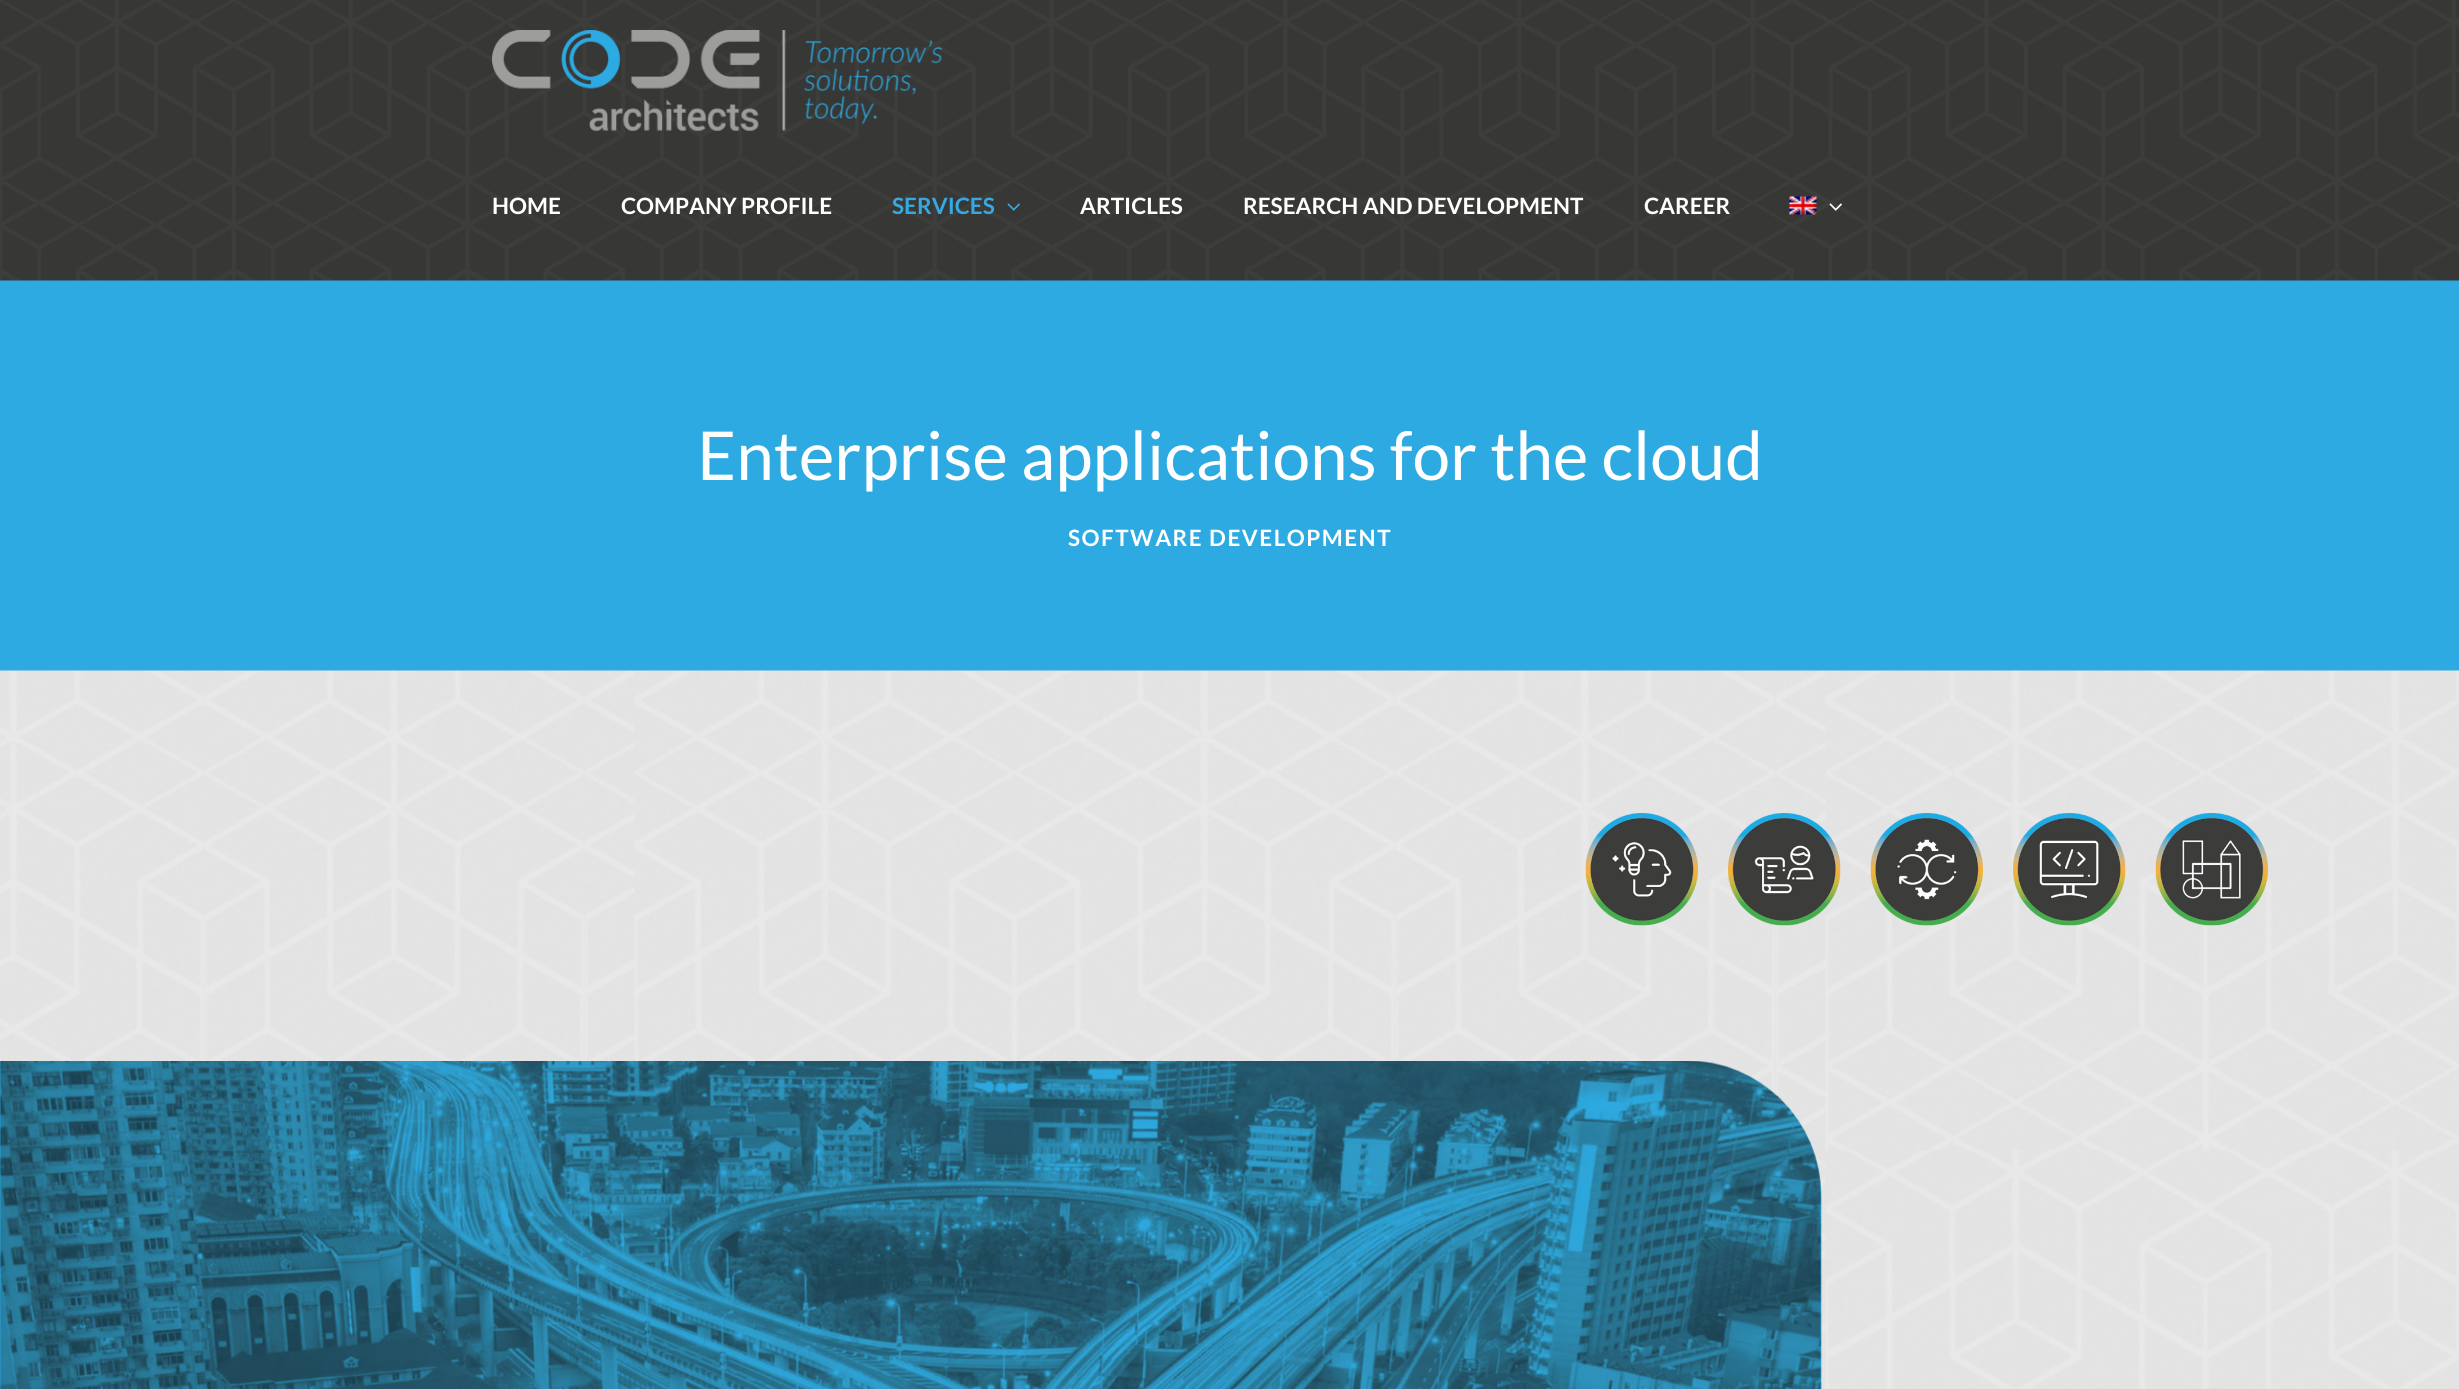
#include <cairo/cairo.h>
#include <math.h>
#include <stddef.h>

static cairo_t *cr;

static void use_color(int r, int g, int b) {
  cairo_set_source_rgb(cr, r / 255.0, g / 255.0, b / 255.0);
}

static void text(double x, double y, const char *s, const char *family, double size, int italic, int bold, int r, int g, int b) {
  cairo_select_font_face(cr, family, italic ? CAIRO_FONT_SLANT_ITALIC : CAIRO_FONT_SLANT_NORMAL,
    bold ? CAIRO_FONT_WEIGHT_BOLD : CAIRO_FONT_WEIGHT_NORMAL);
  cairo_set_font_size(cr, size);
  use_color(r, g, b);
  cairo_move_to(cr, x, y);
  cairo_show_text(cr, s);
}

static void spaced_text(double x, double y, const char *s, double letter, double word) {
  cairo_move_to(cr, x, y);
  while (*s) {
    char ch[5] = {0};
    int n = 0;
    do ch[n++] = *s++; while ((*s & 0xC0) == 0x80);
    cairo_show_text(cr, ch);
    cairo_rel_move_to(cr, letter + word * (*ch == ' '), 0);
  }
}

static void picture(const char *path, double x, double y, double w, double h) {
  cairo_surface_t *image = cairo_image_surface_create_from_png(path);
  cairo_save(cr);
  cairo_set_source_surface(cr, image, x, y);
  cairo_rectangle(cr, x, y, w, h);
  cairo_fill(cr);
  cairo_restore(cr);
  cairo_surface_destroy(image);
}

static void draw(void) {
  use_color(45, 170, 225);
  cairo_paint(cr);
  picture("img_01.png", 0, 0, 2459, 281);
  picture("img_02.png", 492, 30, 450, 101);
  picture("img_03.png", 1007, 203, 13, 8);
  picture("img_04.png", 1789, 196, 28, 19);
  picture("img_05.png", 1829, 203, 13, 8);
  picture("img_06.png", 0, 670, 2459, 719);
  picture("img_07.png", 1585, 813, 113, 113);
  picture("img_08.png", 1728, 813, 113, 113);
  picture("img_09.png", 1870, 813, 113, 113);
  picture("img_10.png", 2013, 813, 113, 113);
  picture("img_11.png", 2155, 813, 113, 113);
  use_color(45, 170, 225);
  cairo_new_path(cr);
  cairo_move_to(cr, 0, 1061);
  cairo_line_to(cr, 1686, 1061);
  cairo_curve_to(cr, 1760.5, 1061, 1821, 1121.5, 1821, 1196);
  cairo_line_to(cr, 1821, 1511);
  cairo_line_to(cr, 0, 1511);
  cairo_close_path(cr);
  cairo_fill(cr);
  picture("img_12.png", 0, 1061, 1822, 328);
  text(492, 214, "HOME", "Lato", 22.5, 0, 1, 255, 255, 255);
  text(621, 214, "COMPANY PROFILE", "Lato", 22.5, 0, 1, 255, 255, 255);
  text(892, 214, "SERVICES", "Lato", 22.5, 0, 1, 54, 169, 225);
  text(1080, 214, "ARTICLES", "Lato", 22.5, 0, 1, 255, 255, 255);
  text(1243, 214, "RESEARCH AND DEVELOPMENT", "Lato", 22.5, 0, 1, 255, 255, 255);
  text(1644, 214, "CAREER", "Lato", 22.5, 0, 1, 255, 255, 255);
  text(697, 480, "Enterprise applications for the cloud", "Lato", 67.5, 0, 0, 255, 255, 255);
  cairo_select_font_face(cr, "Lato", CAIRO_FONT_SLANT_NORMAL, CAIRO_FONT_WEIGHT_BOLD);
  cairo_set_font_size(cr, 22.5);
  spaced_text(1068, 546, "SOFTWARE DEVELOPMENT", 1.5, 0);
}

int main(void) {
  cairo_surface_t *surface = cairo_image_surface_create(CAIRO_FORMAT_RGB24, 2459, 1389);
  cr = cairo_create(surface);
  cairo_font_options_t *options = cairo_font_options_create();
  cairo_font_options_set_hint_metrics(options, CAIRO_HINT_METRICS_OFF);
  cairo_font_options_set_hint_style(options, CAIRO_HINT_STYLE_NONE);
  cairo_set_font_options(cr, options);
  cairo_set_miter_limit(cr, 4);
  draw();
  cairo_surface_write_to_png(surface, "out.png");
  cairo_font_options_destroy(options);
  cairo_destroy(cr);
  cairo_surface_destroy(surface);
  return 0;
}
